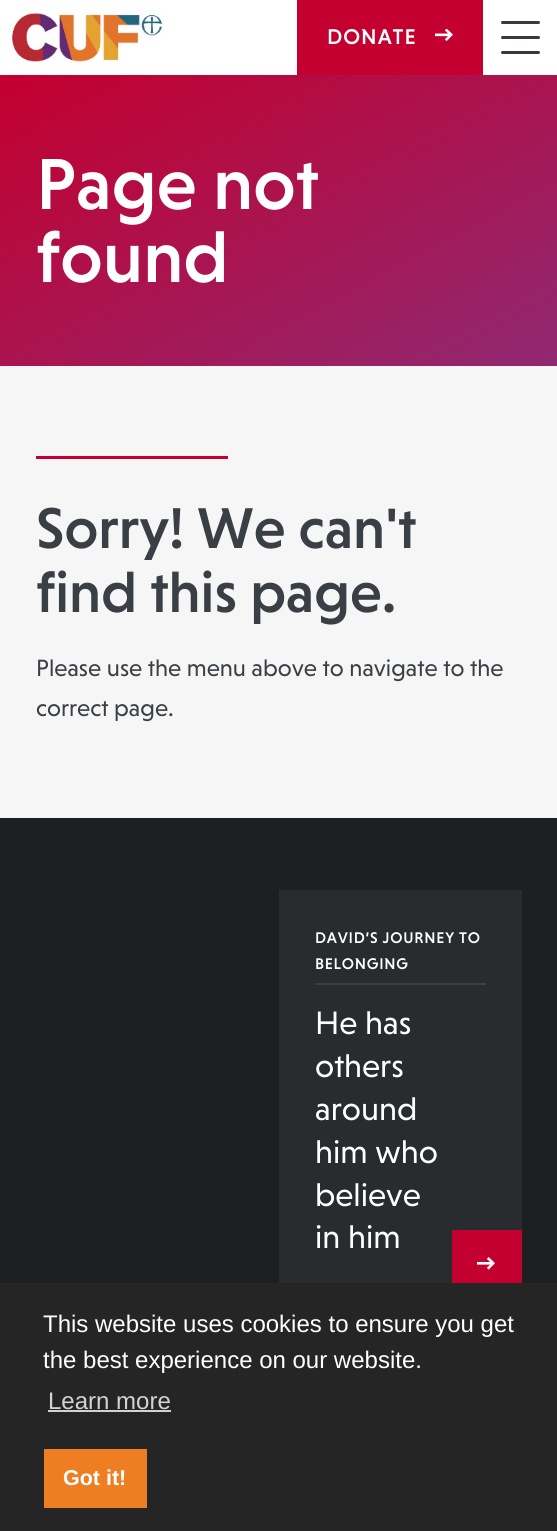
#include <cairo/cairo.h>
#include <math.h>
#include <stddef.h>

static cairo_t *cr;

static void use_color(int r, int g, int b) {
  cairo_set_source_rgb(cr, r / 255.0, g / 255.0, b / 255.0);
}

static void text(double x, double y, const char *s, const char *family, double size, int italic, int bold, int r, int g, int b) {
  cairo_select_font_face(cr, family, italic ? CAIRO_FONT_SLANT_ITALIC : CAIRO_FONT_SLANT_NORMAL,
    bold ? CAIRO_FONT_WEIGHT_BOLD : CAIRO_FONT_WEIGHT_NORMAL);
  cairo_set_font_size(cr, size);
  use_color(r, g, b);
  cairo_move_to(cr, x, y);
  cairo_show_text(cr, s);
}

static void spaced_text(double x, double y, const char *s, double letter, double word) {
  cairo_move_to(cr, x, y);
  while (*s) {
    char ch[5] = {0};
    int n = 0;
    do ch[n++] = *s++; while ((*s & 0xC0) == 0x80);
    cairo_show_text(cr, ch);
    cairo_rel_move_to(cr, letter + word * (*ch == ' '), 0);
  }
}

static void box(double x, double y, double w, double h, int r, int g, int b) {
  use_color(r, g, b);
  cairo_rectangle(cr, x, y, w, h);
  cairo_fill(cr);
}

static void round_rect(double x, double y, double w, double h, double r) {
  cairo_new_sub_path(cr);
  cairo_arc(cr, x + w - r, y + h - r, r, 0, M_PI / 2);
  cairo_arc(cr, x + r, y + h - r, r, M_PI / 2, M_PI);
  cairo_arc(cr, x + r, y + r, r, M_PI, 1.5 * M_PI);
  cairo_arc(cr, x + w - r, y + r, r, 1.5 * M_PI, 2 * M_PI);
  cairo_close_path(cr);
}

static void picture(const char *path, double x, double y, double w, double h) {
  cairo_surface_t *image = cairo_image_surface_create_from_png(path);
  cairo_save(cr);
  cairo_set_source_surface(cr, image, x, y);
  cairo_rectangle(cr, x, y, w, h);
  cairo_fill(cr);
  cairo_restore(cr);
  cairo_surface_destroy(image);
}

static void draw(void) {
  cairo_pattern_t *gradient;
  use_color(246, 246, 246);
  cairo_paint(cr);
  box(0, 0, 557, 75, 255, 255, 255);
  picture("img_01.png", 8, 12, 156, 51);
  box(297, 0, 186, 75, 195, 0, 47);
  picture("img_02.png", 435, 29, 18, 13);
  use_color(58, 55, 66);
  round_rect(501, 21, 39, 3, 1.5);
  cairo_fill(cr);
  round_rect(501, 36, 39, 3, 1.5);
  cairo_fill(cr);
  round_rect(501, 51, 39, 3, 1.5);
  cairo_fill(cr);
  gradient = cairo_pattern_create_linear(206, -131, 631, 669);
  cairo_pattern_add_color_stop_rgba(gradient, 0, 0.957, 0.004, 0.227, 1);
  cairo_pattern_add_color_stop_rgba(gradient, 0.1, 0.765, 0, 0.184, 1);
  cairo_pattern_add_color_stop_rgba(gradient, 0.9, 0.482, 0.224, 0.553, 1);
  cairo_pattern_add_color_stop_rgba(gradient, 1, 0.341, 0.149, 0.396, 1);
  cairo_set_source(cr, gradient);
  cairo_pattern_destroy(gradient);
  cairo_rectangle(cr, 0, 75, 557, 291);
  cairo_fill(cr);
  box(36, 456, 192, 3, 195, 0, 47);
  box(0, 818, 557, 465, 30, 31, 33);
  box(279, 890, 243, 393, 41, 44, 47);
  box(315, 983, 171, 2, 57, 63, 69);
  box(452, 1230, 70, 53, 195, 0, 47);
  picture("img_03.png", 477, 1257, 18, 13);
  box(0, 1283, 557, 248, 37, 37, 37);
  box(48, 1410, 123, 2, 211, 211, 211);
  box(44, 1449, 103, 59, 239, 126, 35);
  cairo_select_font_face(cr, "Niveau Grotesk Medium", CAIRO_FONT_SLANT_NORMAL, CAIRO_FONT_WEIGHT_NORMAL);
  cairo_set_font_size(cr, 21.75);
  use_color(255, 255, 255);
  spaced_text(327, 44, "DONATE", 1, 0);
  text(36, 209, "Page not", "Niveau Grotesk Medium", 73.5, 0, 0, 255, 255, 255);
  text(36, 282, "found", "Niveau Grotesk Medium", 73.5, 0, 0, 255, 255, 255);
  text(36, 548, "Sorry! We can't", "Niveau Grotesk Medium", 58.5, 0, 0, 57, 63, 69);
  text(36, 612, "find this page.", "Niveau Grotesk Medium", 58.5, 0, 0, 57, 63, 69);
  text(36, 676, "Please use the menu above to navigate to the", "Niveau Grotesk", 24, 0, 0, 57, 63, 69);
  text(36, 716, "correct page.", "Niveau Grotesk", 24, 0, 0, 57, 63, 69);
  cairo_select_font_face(cr, "Niveau Grotesk Medium", CAIRO_FONT_SLANT_NORMAL, CAIRO_FONT_WEIGHT_NORMAL);
  cairo_set_font_size(cr, 15.75);
  use_color(255, 255, 255);
  spaced_text(315, 943, "DAVID’S JOURNEY TO", 0.75, 0);
  spaced_text(315, 969, "BELONGING", 0.75, 0);
  text(315, 1034, "He has", "Niveau Grotesk", 33, 0, 0, 255, 255, 255);
  text(315, 1077, "others", "Niveau Grotesk", 33, 0, 0, 255, 255, 255);
  text(315, 1120, "around", "Niveau Grotesk", 33, 0, 0, 255, 255, 255);
  text(315, 1163, "him who", "Niveau Grotesk", 33, 0, 0, 255, 255, 255);
  text(315, 1206, "believe", "Niveau Grotesk", 33, 0, 0, 255, 255, 255);
  text(315, 1248, "in him", "Niveau Grotesk", 33, 0, 0, 255, 255, 255);
  text(43, 1332, "This website uses cookies to ensure you get", "Liberation Sans", 24, 0, 0, 255, 255, 255);
  text(43, 1368, "the best experience on our website.", "Liberation Sans", 24, 0, 0, 255, 255, 255);
  text(48, 1409, "Learn more", "Liberation Sans", 24, 0, 0, 211, 211, 211);
  text(63, 1485, "Got it!", "Liberation Sans", 21.5, 0, 1, 255, 255, 255);
}

int main(void) {
  cairo_surface_t *surface = cairo_image_surface_create(CAIRO_FORMAT_RGB24, 557, 1531);
  cr = cairo_create(surface);
  cairo_font_options_t *options = cairo_font_options_create();
  cairo_font_options_set_hint_metrics(options, CAIRO_HINT_METRICS_OFF);
  cairo_font_options_set_hint_style(options, CAIRO_HINT_STYLE_NONE);
  cairo_set_font_options(cr, options);
  cairo_set_miter_limit(cr, 4);
  draw();
  cairo_surface_write_to_png(surface, "out.png");
  cairo_font_options_destroy(options);
  cairo_destroy(cr);
  cairo_surface_destroy(surface);
  return 0;
}
